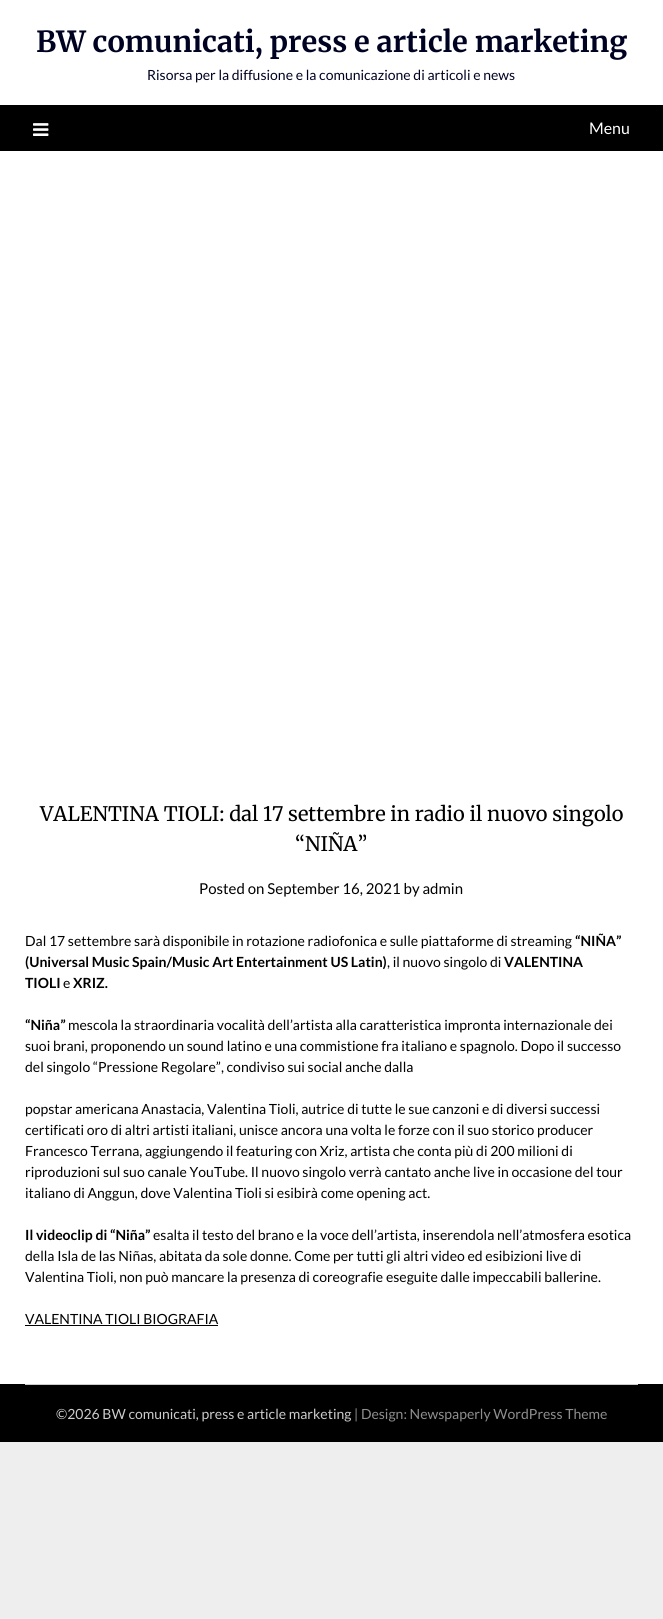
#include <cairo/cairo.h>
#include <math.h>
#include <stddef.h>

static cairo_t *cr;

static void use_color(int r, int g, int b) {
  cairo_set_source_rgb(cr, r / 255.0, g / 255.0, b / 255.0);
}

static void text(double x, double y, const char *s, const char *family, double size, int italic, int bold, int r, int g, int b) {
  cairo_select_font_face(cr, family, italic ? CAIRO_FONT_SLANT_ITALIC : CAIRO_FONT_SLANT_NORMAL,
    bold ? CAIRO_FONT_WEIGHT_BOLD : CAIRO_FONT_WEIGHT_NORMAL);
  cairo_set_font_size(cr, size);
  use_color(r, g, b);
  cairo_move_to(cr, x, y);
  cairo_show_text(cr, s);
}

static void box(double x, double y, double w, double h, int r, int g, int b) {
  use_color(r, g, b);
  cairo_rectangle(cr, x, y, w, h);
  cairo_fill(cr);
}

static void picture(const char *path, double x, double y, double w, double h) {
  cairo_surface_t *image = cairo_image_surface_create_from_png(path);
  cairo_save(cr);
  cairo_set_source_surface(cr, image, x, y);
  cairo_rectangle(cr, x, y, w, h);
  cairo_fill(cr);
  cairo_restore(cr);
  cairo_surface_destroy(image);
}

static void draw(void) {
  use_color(238, 238, 238);
  cairo_paint(cr);
  box(0, 0, 663, 105, 255, 255, 255);
  box(0, 105, 663, 46, 0, 0, 0);
  picture("img_01.png", 33, 123, 16, 13);
  box(0, 151, 663, 1233, 255, 255, 255);
  box(25, 1325, 193, 1, 0, 0, 0);
  box(0, 1384, 663, 58, 0, 0, 0);
  box(25, 1384, 613, 1, 204, 204, 204);
  text(36, 52, "BW comunicati, press e article marketing", "Merriweather", 29, 0, 1, 0, 2, 34);
  text(147, 80, "Risorsa per la diffusione e la comunicazione di articoli e news", "Lato", 14, 0, 0, 0, 2, 34);
  text(589, 134, "Menu", "Lato", 16, 0, 0, 255, 255, 255);
  text(40, 821, "VALENTINA TIOLI: dal 17 settembre in radio il nuovo singolo", "Merriweather", 20, 0, 0, 0, 0, 0);
  text(295, 851, "“NIÑA”", "Merriweather", 20, 0, 0, 0, 0, 0);
  text(199, 894, "Posted on September 16, 2021 by admin", "Lato", 15, 0, 0, 0, 0, 0);
  text(25, 946, "Dal 17 settembre sarà disponibile in rotazione radiofonica e sulle piattaforme di streaming", "Lato", 14, 0, 0, 0, 0, 0);
  text(575, 946, "“NIÑA”", "Lato", 14, 0, 1, 0, 0, 0);
  text(25, 967, "(Universal Music Spain/Music Art Entertainment US Latin)", "Lato", 14, 0, 1, 0, 0, 0);
  text(387, 967, ", il nuovo singolo di", "Lato", 14, 0, 0, 0, 0, 0);
  text(504, 967, "VALENTINA", "Lato", 14, 0, 1, 0, 0, 0);
  text(25, 988, "TIOLI", "Lato", 14, 0, 1, 0, 0, 0);
  text(63, 988, "e", "Lato", 14, 0, 0, 0, 0, 0);
  text(73, 988, "XRIZ.", "Lato", 14, 0, 1, 0, 0, 0);
  text(25, 1030, "“Niña”", "Lato", 14, 0, 1, 0, 0, 0);
  text(68, 1030, "mescola la straordinaria vocalità dell’artista alla caratteristica impronta internazionale dei", "Lato", 14, 0, 0, 0, 0, 0);
  text(25, 1051, "suoi brani, proponendo un sound latino e una commistione fra italiano e spagnolo. Dopo il successo", "Lato", 14, 0, 0, 0, 0, 0);
  text(25, 1072, "del singolo “Pressione Regolare”, condiviso sui social anche dalla", "Lato", 14, 0, 0, 0, 0, 0);
  text(25, 1114, "popstar americana Anastacia, Valentina Tioli, autrice di tutte le sue canzoni e di diversi successi", "Lato", 14, 0, 0, 0, 0, 0);
  text(25, 1135, "certificati oro di altri artisti italiani, unisce ancora una volta le forze con il suo storico producer", "Lato", 14, 0, 0, 0, 0, 0);
  text(25, 1156, "Francesco Terrana, aggiungendo il featuring con Xriz, artista che conta più di 200 milioni di", "Lato", 14, 0, 0, 0, 0, 0);
  text(25, 1177, "riproduzioni sul suo canale YouTube. Il nuovo singolo verrà cantato anche live in occasione del tour", "Lato", 14, 0, 0, 0, 0, 0);
  text(25, 1198, "italiano di Anggun, dove Valentina Tioli si esibirà come opening act.", "Lato", 14, 0, 0, 0, 0, 0);
  text(25, 1240, "Il videoclip di “Niña”", "Lato", 14, 0, 1, 0, 0, 0);
  text(153, 1240, "esalta il testo del brano e la voce dell’artista, inserendola nell’atmosfera esotica", "Lato", 14, 0, 0, 0, 0, 0);
  text(25, 1261, "della Isla de las Niñas, abitata da sole donne. Come per tutti gli altri video ed esibizioni live di", "Lato", 14, 0, 0, 0, 0, 0);
  text(25, 1282, "Valentina Tioli, non può mancare la presenza di coreografie eseguite dalle impeccabili ballerine.", "Lato", 14, 0, 0, 0, 0, 0);
  text(25, 1324, "VALENTINA TIOLI BIOGRAFIA", "Lato", 14, 0, 0, 0, 0, 0);
  text(56, 1419, "©2026 BW comunicati, press e article marketing", "Lato", 14, 0, 0, 204, 204, 204);
  text(354, 1419, "| Design: Newspaperly WordPress Theme", "Lato", 14, 0, 0, 143, 143, 143);
}

int main(void) {
  cairo_surface_t *surface = cairo_image_surface_create(CAIRO_FORMAT_RGB24, 663, 1619);
  cr = cairo_create(surface);
  cairo_font_options_t *options = cairo_font_options_create();
  cairo_font_options_set_hint_metrics(options, CAIRO_HINT_METRICS_OFF);
  cairo_font_options_set_hint_style(options, CAIRO_HINT_STYLE_NONE);
  cairo_set_font_options(cr, options);
  cairo_set_miter_limit(cr, 4);
  draw();
  cairo_surface_write_to_png(surface, "out.png");
  cairo_font_options_destroy(options);
  cairo_destroy(cr);
  cairo_surface_destroy(surface);
  return 0;
}
